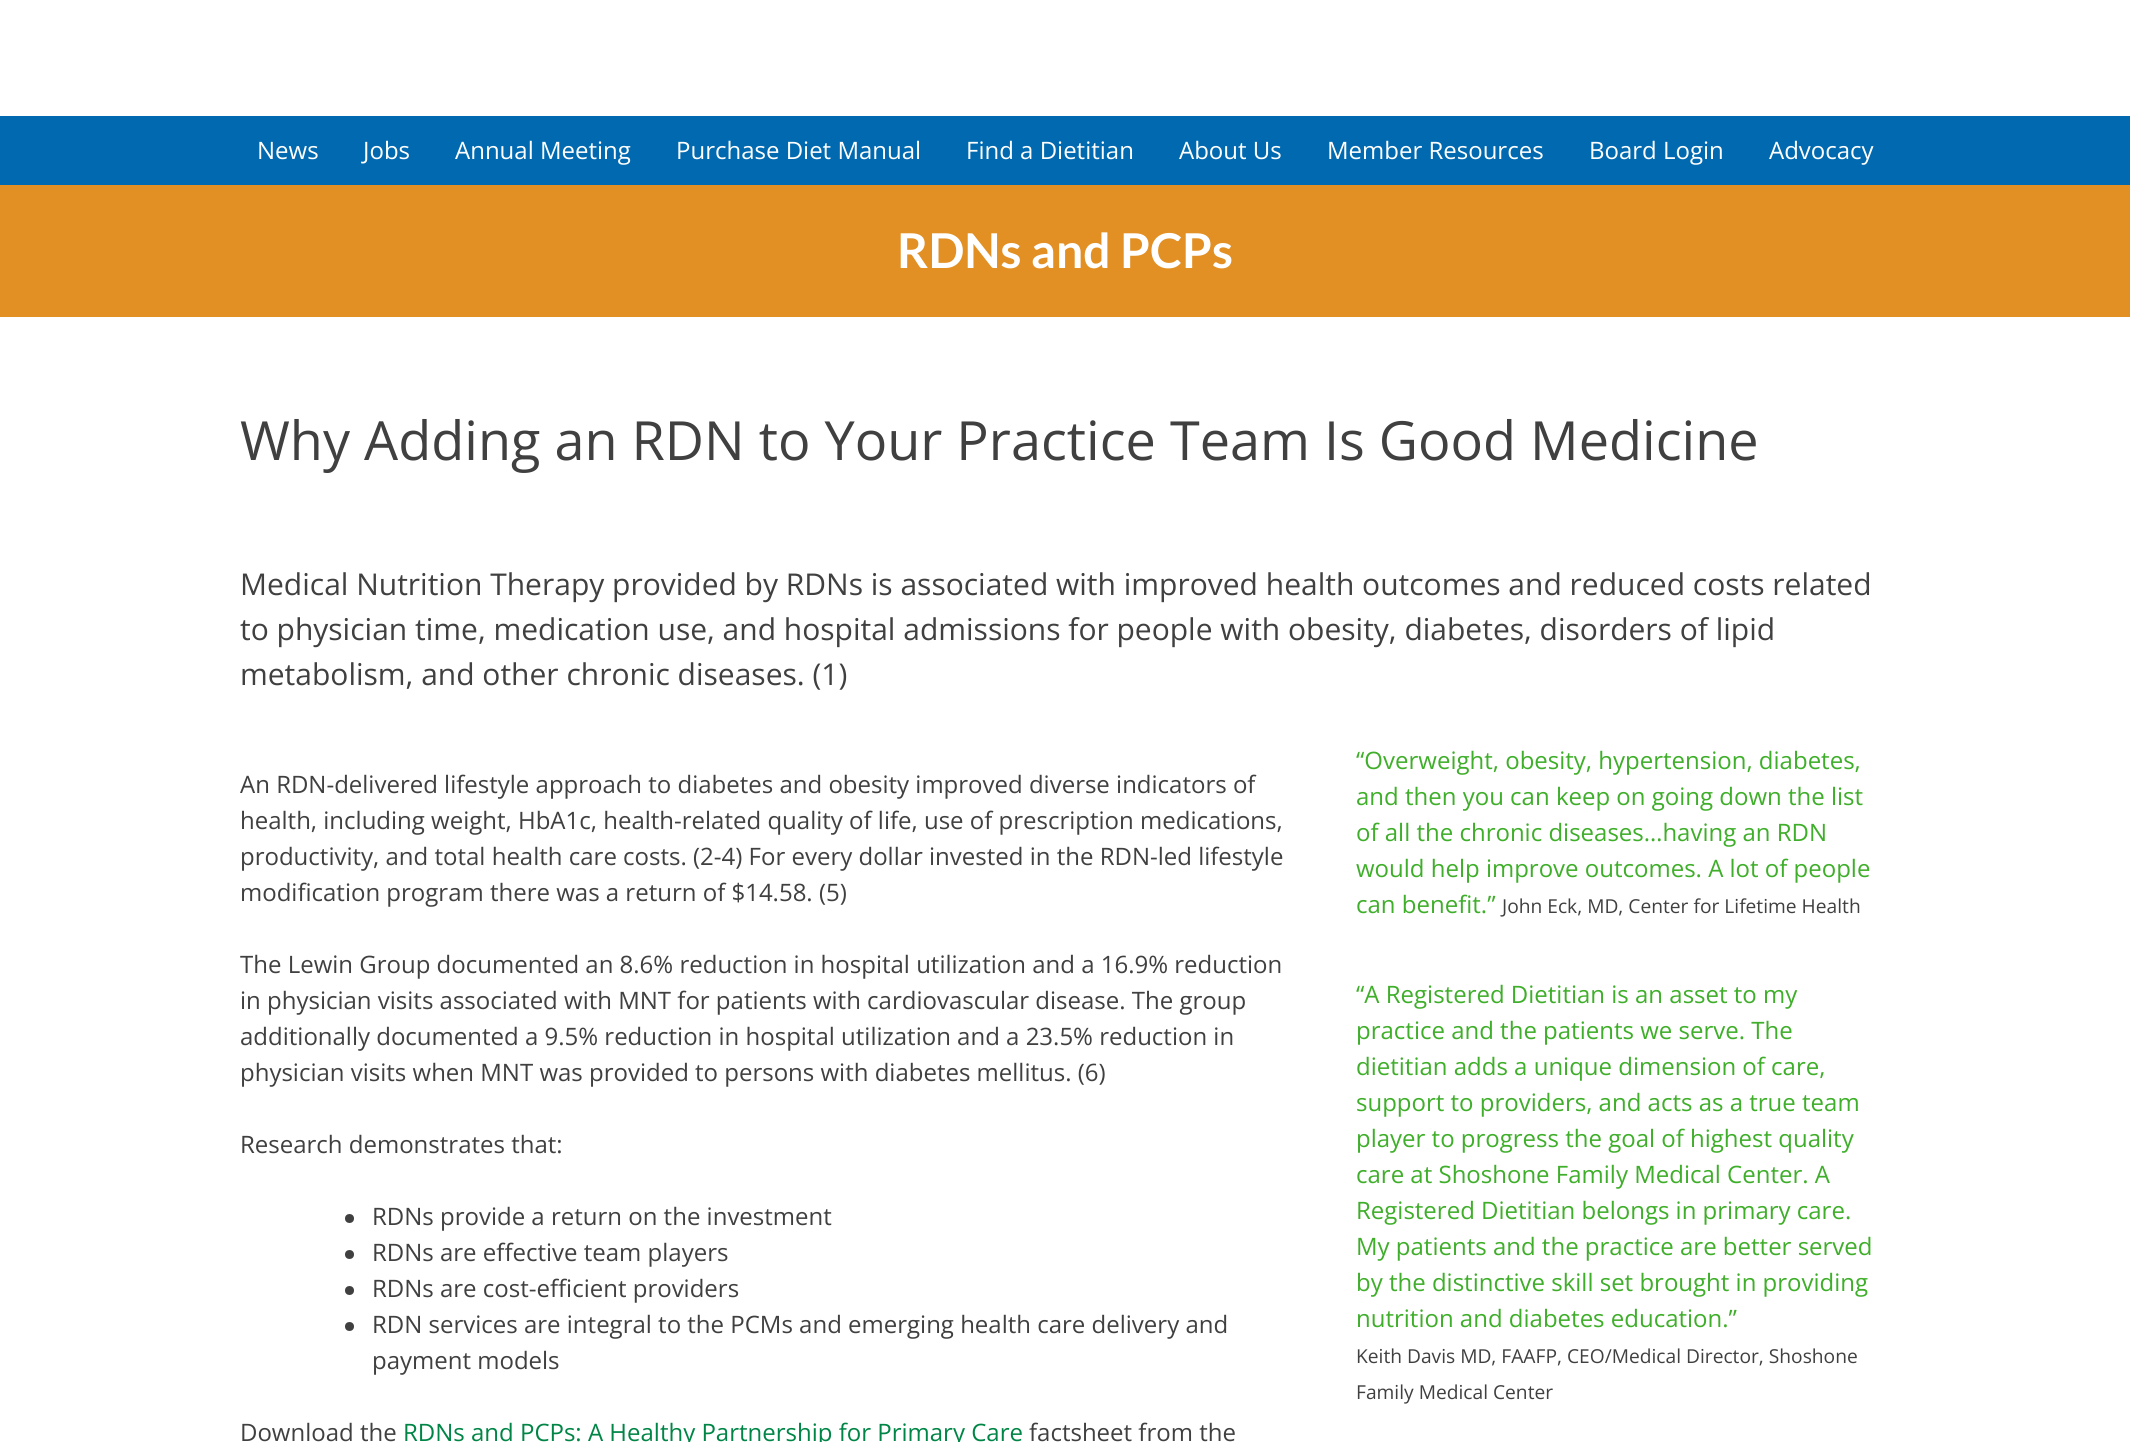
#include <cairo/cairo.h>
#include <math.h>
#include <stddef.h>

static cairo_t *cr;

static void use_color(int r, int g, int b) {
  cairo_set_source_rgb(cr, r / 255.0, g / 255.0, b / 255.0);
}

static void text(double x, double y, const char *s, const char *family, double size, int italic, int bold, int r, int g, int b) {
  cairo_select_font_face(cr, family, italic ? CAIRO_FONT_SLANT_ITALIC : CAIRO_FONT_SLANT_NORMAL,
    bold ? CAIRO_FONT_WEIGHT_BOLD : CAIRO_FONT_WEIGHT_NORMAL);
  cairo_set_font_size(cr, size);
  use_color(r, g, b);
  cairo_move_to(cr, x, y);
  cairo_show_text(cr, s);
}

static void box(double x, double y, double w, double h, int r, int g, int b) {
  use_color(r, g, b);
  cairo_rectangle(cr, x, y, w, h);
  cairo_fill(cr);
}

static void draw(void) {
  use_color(255, 255, 255);
  cairo_paint(cr);
  box(0, 116, 2130, 69, 0, 105, 175);
  box(0, 185, 2130, 132, 226, 144, 35);
  use_color(64, 64, 64);
  cairo_arc(cr, 349.5, 1218.5, 4.5, 0, 2 * M_PI);
  cairo_fill(cr);
  cairo_arc(cr, 349.5, 1254.5, 4.5, 0, 2 * M_PI);
  cairo_fill(cr);
  cairo_arc(cr, 349.5, 1290.5, 4.5, 0, 2 * M_PI);
  cairo_fill(cr);
  cairo_arc(cr, 349.5, 1326.5, 4.5, 0, 2 * M_PI);
  cairo_fill(cr);
  text(257, 159, "News", "Open Sans", 24, 0, 0, 255, 255, 255);
  text(363, 159, "Jobs", "Open Sans", 24, 0, 0, 255, 255, 255);
  text(455, 159, "Annual Meeting", "Open Sans", 24, 0, 0, 255, 255, 255);
  text(676, 159, "Purchase Diet Manual", "Open Sans", 24, 0, 0, 255, 255, 255);
  text(966, 159, "Find a Dietitian", "Open Sans", 24, 0, 0, 255, 255, 255);
  text(1179, 159, "About Us", "Open Sans", 24, 0, 0, 255, 255, 255);
  text(1327, 159, "Member Resources", "Open Sans", 24, 0, 0, 255, 255, 255);
  text(1589, 159, "Board Login", "Open Sans", 24, 0, 0, 255, 255, 255);
  text(1769, 159, "Advocacy", "Open Sans", 24, 0, 0, 255, 255, 255);
  text(897, 268, "RDNs and PCPs", "Lato", 48, 0, 1, 255, 255, 255);
  text(240, 460, "Why Adding an RDN to Your Practice Team Is Good Medicine", "Open Sans", 54, 0, 0, 64, 64, 64);
  text(240, 595, "Medical Nutrition Therapy provided by RDNs is associated with improved health outcomes and reduced costs related", "Open Sans", 30, 0, 0, 64, 64, 64);
  text(240, 640, "to physician time, medication use, and hospital admissions for people with obesity, diabetes, disorders of lipid", "Open Sans", 30, 0, 0, 64, 64, 64);
  text(240, 685, "metabolism, and other chronic diseases. (1)", "Open Sans", 30, 0, 0, 64, 64, 64);
  text(240, 793, "An RDN-delivered lifestyle approach to diabetes and obesity improved diverse indicators of", "Open Sans", 24, 0, 0, 64, 64, 64);
  text(240, 829, "health, including weight, HbA1c, health-related quality of life, use of prescription medications,", "Open Sans", 24, 0, 0, 64, 64, 64);
  text(240, 865, "productivity, and total health care costs. (2-4) For every dollar invested in the RDN-led lifestyle", "Open Sans", 24, 0, 0, 64, 64, 64);
  text(240, 901, "modification program there was a return of $14.58. (5)", "Open Sans", 24, 0, 0, 64, 64, 64);
  text(240, 973, "The Lewin Group documented an 8.6% reduction in hospital utilization and a 16.9% reduction", "Open Sans", 24, 0, 0, 64, 64, 64);
  text(240, 1009, "in physician visits associated with MNT for patients with cardiovascular disease. The group", "Open Sans", 24, 0, 0, 64, 64, 64);
  text(240, 1045, "additionally documented a 9.5% reduction in hospital utilization and a 23.5% reduction in", "Open Sans", 24, 0, 0, 64, 64, 64);
  text(240, 1081, "physician visits when MNT was provided to persons with diabetes mellitus. (6)", "Open Sans", 24, 0, 0, 64, 64, 64);
  text(240, 1153, "Research demonstrates that:", "Open Sans", 24, 0, 0, 64, 64, 64);
  text(372, 1225, "RDNs provide a return on the investment", "Open Sans", 24, 0, 0, 64, 64, 64);
  text(372, 1261, "RDNs are effective team players", "Open Sans", 24, 0, 0, 64, 64, 64);
  text(372, 1297, "RDNs are cost-efficient providers", "Open Sans", 24, 0, 0, 64, 64, 64);
  text(372, 1333, "RDN services are integral to the PCMs and emerging health care delivery and", "Open Sans", 24, 0, 0, 64, 64, 64);
  text(372, 1369, "payment models", "Open Sans", 24, 0, 0, 64, 64, 64);
  text(240, 1441, "Download the", "Open Sans", 24, 0, 0, 64, 64, 64);
  text(403, 1441, "RDNs and PCPs: A Healthy Partnership for Primary Care", "Open Sans", 24, 0, 0, 1, 133, 70);
  text(1029, 1441, "factsheet from the", "Open Sans", 24, 0, 0, 64, 64, 64);
  text(1356, 769, "“Overweight, obesity, hypertension, diabetes,", "Open Sans", 24, 0, 0, 63, 174, 42);
  text(1356, 805, "and then you can keep on going down the list", "Open Sans", 24, 0, 0, 63, 174, 42);
  text(1356, 841, "of all the chronic diseases…having an RDN", "Open Sans", 24, 0, 0, 63, 174, 42);
  text(1356, 877, "would help improve outcomes. A lot of people", "Open Sans", 24, 0, 0, 63, 174, 42);
  text(1356, 913, "can benefit.”", "Open Sans", 24, 0, 0, 63, 174, 42);
  text(1502, 913, "John Eck, MD, Center for Lifetime Health", "Open Sans", 19.2, 0, 0, 64, 64, 64);
  text(1356, 1003, "“A Registered Dietitian is an asset to my", "Open Sans", 24, 0, 0, 63, 174, 42);
  text(1356, 1039, "practice and the patients we serve. The", "Open Sans", 24, 0, 0, 63, 174, 42);
  text(1356, 1075, "dietitian adds a unique dimension of care,", "Open Sans", 24, 0, 0, 63, 174, 42);
  text(1356, 1111, "support to providers, and acts as a true team", "Open Sans", 24, 0, 0, 63, 174, 42);
  text(1356, 1147, "player to progress the goal of highest quality", "Open Sans", 24, 0, 0, 63, 174, 42);
  text(1356, 1183, "care at Shoshone Family Medical Center. A", "Open Sans", 24, 0, 0, 63, 174, 42);
  text(1356, 1219, "Registered Dietitian belongs in primary care.", "Open Sans", 24, 0, 0, 63, 174, 42);
  text(1356, 1255, "My patients and the practice are better served", "Open Sans", 24, 0, 0, 63, 174, 42);
  text(1356, 1291, "by the distinctive skill set brought in providing", "Open Sans", 24, 0, 0, 63, 174, 42);
  text(1356, 1327, "nutrition and diabetes education.”", "Open Sans", 24, 0, 0, 63, 174, 42);
  text(1356, 1363, "Keith Davis MD, FAAFP, CEO/Medical Director, Shoshone", "Open Sans", 19.2, 0, 0, 64, 64, 64);
  text(1356, 1399, "Family Medical Center", "Open Sans", 19.2, 0, 0, 64, 64, 64);
}

int main(void) {
  cairo_surface_t *surface = cairo_image_surface_create(CAIRO_FORMAT_RGB24, 2130, 1442);
  cr = cairo_create(surface);
  cairo_font_options_t *options = cairo_font_options_create();
  cairo_font_options_set_hint_metrics(options, CAIRO_HINT_METRICS_OFF);
  cairo_font_options_set_hint_style(options, CAIRO_HINT_STYLE_NONE);
  cairo_set_font_options(cr, options);
  cairo_set_miter_limit(cr, 4);
  draw();
  cairo_surface_write_to_png(surface, "out.png");
  cairo_font_options_destroy(options);
  cairo_destroy(cr);
  cairo_surface_destroy(surface);
  return 0;
}
